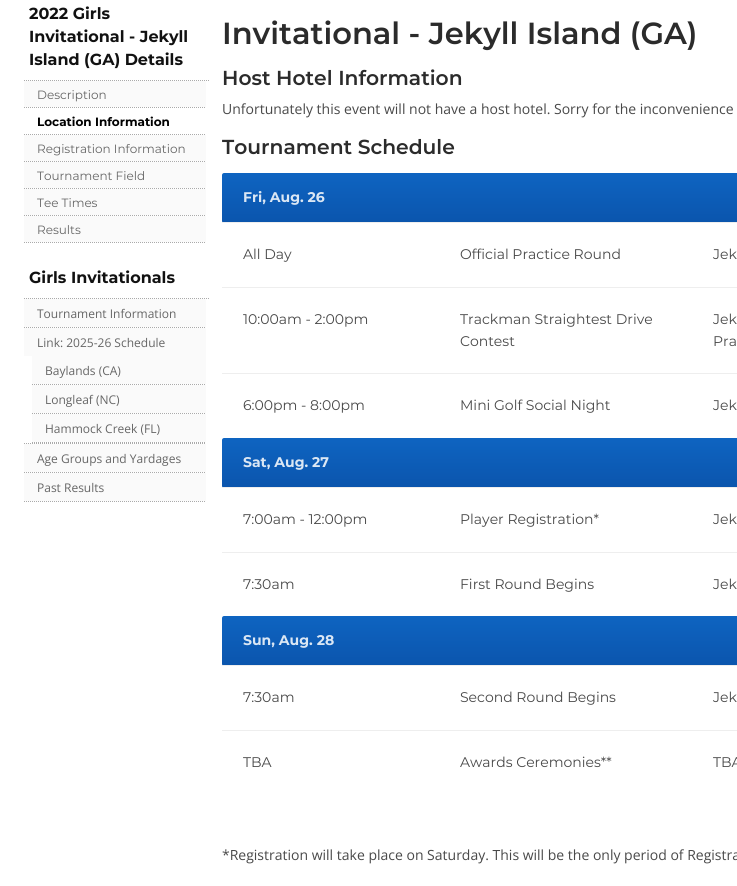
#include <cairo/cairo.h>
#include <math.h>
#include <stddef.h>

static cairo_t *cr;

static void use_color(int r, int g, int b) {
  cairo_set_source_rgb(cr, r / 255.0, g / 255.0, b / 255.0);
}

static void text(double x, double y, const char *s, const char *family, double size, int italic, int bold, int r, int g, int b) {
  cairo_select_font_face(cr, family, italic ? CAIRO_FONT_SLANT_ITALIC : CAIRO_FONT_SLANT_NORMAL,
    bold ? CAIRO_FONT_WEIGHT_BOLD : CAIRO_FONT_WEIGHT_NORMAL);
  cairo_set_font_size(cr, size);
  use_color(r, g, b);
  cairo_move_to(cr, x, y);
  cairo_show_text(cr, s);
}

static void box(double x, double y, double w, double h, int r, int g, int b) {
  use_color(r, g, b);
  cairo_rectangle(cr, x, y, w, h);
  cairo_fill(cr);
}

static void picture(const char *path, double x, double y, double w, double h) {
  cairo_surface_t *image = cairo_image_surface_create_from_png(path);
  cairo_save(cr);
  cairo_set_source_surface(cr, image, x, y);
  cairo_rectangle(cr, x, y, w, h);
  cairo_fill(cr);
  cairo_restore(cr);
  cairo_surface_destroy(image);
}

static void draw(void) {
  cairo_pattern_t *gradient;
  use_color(255, 255, 255);
  cairo_paint(cr);
  picture("img_01.png", 24, 80, 185, 1);
  picture("img_02.png", 24, 107, 181, 1);
  box(24, 81, 182, 26, 250, 250, 250);
  picture("img_02.png", 24, 134, 181, 1);
  picture("img_02.png", 24, 161, 181, 1);
  box(24, 135, 182, 26, 250, 250, 250);
  picture("img_02.png", 24, 188, 181, 1);
  box(24, 162, 182, 26, 250, 250, 250);
  picture("img_02.png", 24, 215, 181, 1);
  box(24, 189, 182, 26, 250, 250, 250);
  picture("img_02.png", 24, 242, 181, 1);
  box(24, 216, 182, 26, 250, 250, 250);
  picture("img_01.png", 24, 298, 185, 1);
  picture("img_02.png", 24, 327, 181, 1);
  box(24, 299, 182, 28, 250, 250, 250);
  picture("img_02.png", 24, 443, 181, 1);
  box(24, 328, 182, 28, 250, 250, 250);
  picture("img_03.png", 32, 384, 173, 1);
  box(32, 356, 174, 28, 250, 250, 250);
  picture("img_03.png", 32, 413, 173, 1);
  box(32, 385, 174, 28, 250, 250, 250);
  picture("img_03.png", 32, 442, 173, 1);
  box(32, 414, 174, 28, 250, 250, 250);
  picture("img_02.png", 24, 472, 181, 1);
  box(24, 444, 182, 28, 250, 250, 250);
  picture("img_02.png", 24, 501, 181, 1);
  box(24, 473, 182, 28, 250, 250, 250);
  gradient = cairo_pattern_create_linear(331, 173, 331, 223);
  cairo_pattern_add_color_stop_rgba(gradient, 0, 0.055, 0.392, 0.757, 1);
  cairo_pattern_add_color_stop_rgba(gradient, 1, 0.043, 0.333, 0.678, 1);
  cairo_set_source(cr, gradient);
  cairo_pattern_destroy(gradient);
  cairo_new_path(cr);
  cairo_move_to(cr, 224, 173);
  cairo_line_to(cr, 439, 173);
  cairo_line_to(cr, 439, 223);
  cairo_line_to(cr, 224, 223);
  cairo_curve_to(cr, 223, 223, 222, 222, 222, 221);
  cairo_line_to(cr, 222, 175);
  cairo_curve_to(cr, 222, 174, 223, 173, 224, 173);
  cairo_close_path(cr);
  cairo_fill(cr);
  gradient = cairo_pattern_create_linear(566, 173, 566, 223);
  cairo_pattern_add_color_stop_rgba(gradient, 0, 0.055, 0.392, 0.757, 1);
  cairo_pattern_add_color_stop_rgba(gradient, 1, 0.043, 0.333, 0.678, 1);
  cairo_set_source(cr, gradient);
  cairo_pattern_destroy(gradient);
  cairo_rectangle(cr, 439, 173, 253, 49);
  cairo_fill(cr);
  gradient = cairo_pattern_create_linear(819, 173, 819, 223);
  cairo_pattern_add_color_stop_rgba(gradient, 0, 0.055, 0.392, 0.757, 1);
  cairo_pattern_add_color_stop_rgba(gradient, 1, 0.043, 0.333, 0.678, 1);
  cairo_set_source(cr, gradient);
  cairo_pattern_destroy(gradient);
  cairo_rectangle(cr, 692, 173, 45, 49);
  cairo_fill(cr);
  box(222, 222, 515, 1, 238, 238, 238);
  box(222, 287, 515, 1, 238, 238, 238);
  box(222, 373, 515, 1, 238, 238, 238);
  gradient = cairo_pattern_create_linear(331, 438, 331, 488);
  cairo_pattern_add_color_stop_rgba(gradient, 0, 0.055, 0.392, 0.757, 1);
  cairo_pattern_add_color_stop_rgba(gradient, 1, 0.043, 0.333, 0.678, 1);
  cairo_set_source(cr, gradient);
  cairo_pattern_destroy(gradient);
  cairo_new_path(cr);
  cairo_move_to(cr, 224, 438);
  cairo_line_to(cr, 439, 438);
  cairo_line_to(cr, 439, 488);
  cairo_line_to(cr, 224, 488);
  cairo_curve_to(cr, 223, 488, 222, 487, 222, 486);
  cairo_line_to(cr, 222, 440);
  cairo_curve_to(cr, 222, 439, 223, 438, 224, 438);
  cairo_close_path(cr);
  cairo_fill(cr);
  gradient = cairo_pattern_create_linear(566, 438, 566, 488);
  cairo_pattern_add_color_stop_rgba(gradient, 0, 0.055, 0.392, 0.757, 1);
  cairo_pattern_add_color_stop_rgba(gradient, 1, 0.043, 0.333, 0.678, 1);
  cairo_set_source(cr, gradient);
  cairo_pattern_destroy(gradient);
  cairo_rectangle(cr, 439, 438, 253, 49);
  cairo_fill(cr);
  gradient = cairo_pattern_create_linear(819, 438, 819, 488);
  cairo_pattern_add_color_stop_rgba(gradient, 0, 0.055, 0.392, 0.757, 1);
  cairo_pattern_add_color_stop_rgba(gradient, 1, 0.043, 0.333, 0.678, 1);
  cairo_set_source(cr, gradient);
  cairo_pattern_destroy(gradient);
  cairo_rectangle(cr, 692, 438, 45, 49);
  cairo_fill(cr);
  box(222, 487, 515, 1, 238, 238, 238);
  box(222, 552, 515, 1, 238, 238, 238);
  gradient = cairo_pattern_create_linear(331, 616, 331, 666);
  cairo_pattern_add_color_stop_rgba(gradient, 0, 0.055, 0.392, 0.757, 1);
  cairo_pattern_add_color_stop_rgba(gradient, 1, 0.043, 0.333, 0.678, 1);
  cairo_set_source(cr, gradient);
  cairo_pattern_destroy(gradient);
  cairo_new_path(cr);
  cairo_move_to(cr, 224, 616);
  cairo_line_to(cr, 439, 616);
  cairo_line_to(cr, 439, 666);
  cairo_line_to(cr, 224, 666);
  cairo_curve_to(cr, 223, 666, 222, 665, 222, 664);
  cairo_line_to(cr, 222, 618);
  cairo_curve_to(cr, 222, 617, 223, 616, 224, 616);
  cairo_close_path(cr);
  cairo_fill(cr);
  gradient = cairo_pattern_create_linear(566, 616, 566, 666);
  cairo_pattern_add_color_stop_rgba(gradient, 0, 0.055, 0.392, 0.757, 1);
  cairo_pattern_add_color_stop_rgba(gradient, 1, 0.043, 0.333, 0.678, 1);
  cairo_set_source(cr, gradient);
  cairo_pattern_destroy(gradient);
  cairo_rectangle(cr, 439, 616, 253, 49);
  cairo_fill(cr);
  gradient = cairo_pattern_create_linear(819, 616, 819, 666);
  cairo_pattern_add_color_stop_rgba(gradient, 0, 0.055, 0.392, 0.757, 1);
  cairo_pattern_add_color_stop_rgba(gradient, 1, 0.043, 0.333, 0.678, 1);
  cairo_set_source(cr, gradient);
  cairo_pattern_destroy(gradient);
  cairo_rectangle(cr, 692, 616, 45, 49);
  cairo_fill(cr);
  box(222, 665, 515, 1, 238, 238, 238);
  box(222, 730, 515, 1, 238, 238, 238);
  text(29, 19, "2022 Girls", "Montserrat", 16, 0, 1, 17, 17, 17);
  text(29, 42, "Invitational - Jekyll", "Montserrat", 16, 0, 1, 17, 17, 17);
  text(29, 65, "Island (GA) Details", "Montserrat", 16, 0, 1, 17, 17, 17);
  text(37, 99, "Description", "Montserrat", 12, 0, 0, 102, 102, 102);
  text(37, 126, "Location Information", "Montserrat", 12, 0, 1, 0, 0, 0);
  text(37, 153, "Registration Information", "Montserrat", 12, 0, 0, 102, 102, 102);
  text(37, 180, "Tournament Field", "Montserrat", 12, 0, 0, 102, 102, 102);
  text(37, 207, "Tee Times", "Montserrat", 12, 0, 0, 102, 102, 102);
  text(37, 234, "Results", "Montserrat", 12, 0, 0, 102, 102, 102);
  text(29, 283, "Girls Invitationals", "Montserrat", 16, 0, 1, 17, 17, 17);
  text(37, 318, "Tournament Information", "Open Sans", 12, 0, 0, 102, 102, 102);
  text(37, 347, "Link: 2025-26 Schedule", "Open Sans", 12, 0, 0, 102, 102, 102);
  text(45, 375, "Baylands (CA)", "Open Sans", 12, 0, 0, 102, 102, 102);
  text(45, 404, "Longleaf (NC)", "Open Sans", 12, 0, 0, 102, 102, 102);
  text(45, 433, "Hammock Creek (FL)", "Open Sans", 12, 0, 0, 102, 102, 102);
  text(37, 463, "Age Groups and Yardages", "Open Sans", 12, 0, 0, 102, 102, 102);
  text(37, 492, "Past Results", "Open Sans", 12, 0, 0, 102, 102, 102);
  text(222, 44, "Invitational - Jekyll Island (GA)", "Montserrat SemiBold", 30.5, 0, 0, 43, 43, 43);
  text(222, 85, "Host Hotel Information", "Montserrat SemiBold", 20.25, 0, 0, 43, 43, 43);
  text(222, 114, "Unfortunately this event will not have a host hotel. Sorry for the inconvenience", "Open Sans", 14, 0, 0, 73, 73, 73);
  text(222, 154, "Tournament Schedule", "Montserrat SemiBold", 20.25, 0, 0, 43, 43, 43);
  text(243, 202, "Fri, Aug. 26", "Montserrat", 14, 0, 1, 219, 231, 244);
  text(243, 259, "All Day", "Montserrat", 14, 0, 0, 73, 73, 73);
  text(460, 259, "Official Practice Round", "Montserrat", 14, 0, 0, 73, 73, 73);
  text(713, 259, "Jek", "Montserrat", 14, 0, 0, 73, 73, 73);
  text(243, 324, "10:00am - 2:00pm", "Montserrat", 14, 0, 0, 73, 73, 73);
  text(460, 324, "Trackman Straightest Drive", "Montserrat", 14, 0, 0, 73, 73, 73);
  text(460, 346, "Contest", "Montserrat", 14, 0, 0, 73, 73, 73);
  text(713, 324, "Jek", "Montserrat", 14, 0, 0, 73, 73, 73);
  text(713, 346, "Pra", "Montserrat", 14, 0, 0, 73, 73, 73);
  text(243, 410, "6:00pm - 8:00pm", "Montserrat", 14, 0, 0, 73, 73, 73);
  text(460, 410, "Mini Golf Social Night", "Montserrat", 14, 0, 0, 73, 73, 73);
  text(713, 410, "Jek", "Montserrat", 14, 0, 0, 73, 73, 73);
  text(243, 467, "Sat, Aug. 27", "Montserrat", 14, 0, 1, 219, 231, 244);
  text(243, 524, "7:00am - 12:00pm", "Montserrat", 14, 0, 0, 73, 73, 73);
  text(460, 524, "Player Registration*", "Montserrat", 14, 0, 0, 73, 73, 73);
  text(713, 524, "Jek", "Montserrat", 14, 0, 0, 73, 73, 73);
  text(243, 589, "7:30am", "Montserrat", 14, 0, 0, 73, 73, 73);
  text(460, 589, "First Round Begins", "Montserrat", 14, 0, 0, 73, 73, 73);
  text(713, 589, "Jek", "Montserrat", 14, 0, 0, 73, 73, 73);
  text(243, 645, "Sun, Aug. 28", "Montserrat", 14, 0, 1, 219, 231, 244);
  text(243, 702, "7:30am", "Montserrat", 14, 0, 0, 73, 73, 73);
  text(460, 702, "Second Round Begins", "Montserrat", 14, 0, 0, 73, 73, 73);
  text(713, 702, "Jek", "Montserrat", 14, 0, 0, 73, 73, 73);
  text(243, 767, "TBA", "Montserrat", 14, 0, 0, 73, 73, 73);
  text(460, 767, "Awards Ceremonies**", "Montserrat", 14, 0, 0, 73, 73, 73);
  text(713, 767, "TBA", "Montserrat", 14, 0, 0, 73, 73, 73);
  text(222, 860, "*Registration will take place on Saturday. This will be the only period of Registra", "Open Sans", 14, 0, 0, 73, 73, 73);
}

int main(void) {
  cairo_surface_t *surface = cairo_image_surface_create(CAIRO_FORMAT_RGB24, 737, 886);
  cr = cairo_create(surface);
  cairo_font_options_t *options = cairo_font_options_create();
  cairo_font_options_set_hint_metrics(options, CAIRO_HINT_METRICS_OFF);
  cairo_font_options_set_hint_style(options, CAIRO_HINT_STYLE_NONE);
  cairo_set_font_options(cr, options);
  cairo_set_miter_limit(cr, 4);
  draw();
  cairo_surface_write_to_png(surface, "out.png");
  cairo_font_options_destroy(options);
  cairo_destroy(cr);
  cairo_surface_destroy(surface);
  return 0;
}
